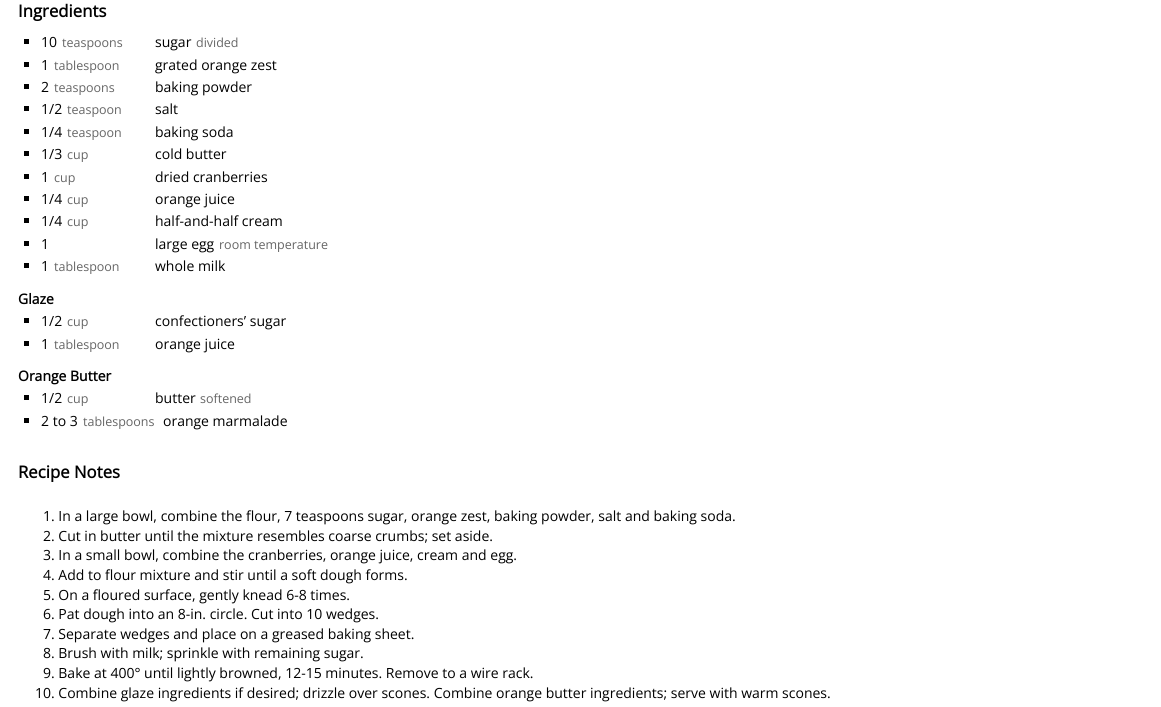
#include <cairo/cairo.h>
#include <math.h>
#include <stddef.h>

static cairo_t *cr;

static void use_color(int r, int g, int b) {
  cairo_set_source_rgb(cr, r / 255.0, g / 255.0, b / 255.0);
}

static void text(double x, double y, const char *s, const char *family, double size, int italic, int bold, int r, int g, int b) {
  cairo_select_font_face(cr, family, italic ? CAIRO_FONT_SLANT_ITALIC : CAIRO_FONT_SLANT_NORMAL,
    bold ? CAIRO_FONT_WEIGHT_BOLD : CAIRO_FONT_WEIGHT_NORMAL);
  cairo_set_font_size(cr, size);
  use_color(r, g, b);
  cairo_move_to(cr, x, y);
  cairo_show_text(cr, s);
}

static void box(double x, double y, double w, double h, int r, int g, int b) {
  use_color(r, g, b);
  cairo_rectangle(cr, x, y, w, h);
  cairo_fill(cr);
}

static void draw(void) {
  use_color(255, 255, 255);
  cairo_paint(cr);
  box(24, 39, 5, 5, 0, 0, 0);
  box(24, 62, 5, 5, 0, 0, 0);
  box(24, 84, 5, 5, 0, 0, 0);
  box(24, 106, 5, 5, 0, 0, 0);
  box(24, 129, 5, 5, 0, 0, 0);
  box(24, 151, 5, 5, 0, 0, 0);
  box(24, 174, 5, 5, 0, 0, 0);
  box(24, 196, 5, 5, 0, 0, 0);
  box(24, 218, 5, 5, 0, 0, 0);
  box(24, 241, 5, 5, 0, 0, 0);
  box(24, 263, 5, 5, 0, 0, 0);
  box(24, 318, 5, 5, 0, 0, 0);
  box(24, 341, 5, 5, 0, 0, 0);
  box(24, 395, 5, 5, 0, 0, 0);
  box(24, 418, 5, 5, 0, 0, 0);
  text(18, 17, "Ingredients", "Open Sans", 16.75, 0, 1, 0, 0, 0);
  text(41, 47, "10", "Open Sans", 14, 0, 0, 0, 0, 0);
  text(62, 47, "teaspoons", "Open Sans", 12.5, 0, 0, 102, 102, 102);
  text(155, 47, "sugar", "Open Sans", 14, 0, 0, 0, 0, 0);
  text(196, 47, "divided", "Open Sans", 12.5, 0, 0, 102, 102, 102);
  text(41, 70, "1", "Open Sans", 14, 0, 0, 0, 0, 0);
  text(54, 70, "tablespoon", "Open Sans", 12.5, 0, 0, 102, 102, 102);
  text(155, 70, "grated orange zest", "Open Sans", 14, 0, 0, 0, 0, 0);
  text(41, 92, "2", "Open Sans", 14, 0, 0, 0, 0, 0);
  text(54, 92, "teaspoons", "Open Sans", 12.5, 0, 0, 102, 102, 102);
  text(155, 92, "baking powder", "Open Sans", 14, 0, 0, 0, 0, 0);
  text(41, 114, "1/2", "Open Sans", 14, 0, 0, 0, 0, 0);
  text(67, 114, "teaspoon", "Open Sans", 12.5, 0, 0, 102, 102, 102);
  text(155, 114, "salt", "Open Sans", 14, 0, 0, 0, 0, 0);
  text(41, 137, "1/4", "Open Sans", 14, 0, 0, 0, 0, 0);
  text(67, 137, "teaspoon", "Open Sans", 12.5, 0, 0, 102, 102, 102);
  text(155, 137, "baking soda", "Open Sans", 14, 0, 0, 0, 0, 0);
  text(41, 159, "1/3", "Open Sans", 14, 0, 0, 0, 0, 0);
  text(67, 159, "cup", "Open Sans", 12.5, 0, 0, 102, 102, 102);
  text(155, 159, "cold butter", "Open Sans", 14, 0, 0, 0, 0, 0);
  text(41, 182, "1", "Open Sans", 14, 0, 0, 0, 0, 0);
  text(54, 182, "cup", "Open Sans", 12.5, 0, 0, 102, 102, 102);
  text(155, 182, "dried cranberries", "Open Sans", 14, 0, 0, 0, 0, 0);
  text(41, 204, "1/4", "Open Sans", 14, 0, 0, 0, 0, 0);
  text(67, 204, "cup", "Open Sans", 12.5, 0, 0, 102, 102, 102);
  text(155, 204, "orange juice", "Open Sans", 14, 0, 0, 0, 0, 0);
  text(41, 226, "1/4", "Open Sans", 14, 0, 0, 0, 0, 0);
  text(67, 226, "cup", "Open Sans", 12.5, 0, 0, 102, 102, 102);
  text(155, 226, "half-and-half cream", "Open Sans", 14, 0, 0, 0, 0, 0);
  text(41, 249, "1", "Open Sans", 14, 0, 0, 0, 0, 0);
  text(155, 249, "large egg", "Open Sans", 14, 0, 0, 0, 0, 0);
  text(219, 249, "room temperature", "Open Sans", 12.5, 0, 0, 102, 102, 102);
  text(41, 271, "1", "Open Sans", 14, 0, 0, 0, 0, 0);
  text(54, 271, "tablespoon", "Open Sans", 12.5, 0, 0, 102, 102, 102);
  text(155, 271, "whole milk", "Open Sans", 14, 0, 0, 0, 0, 0);
  text(18, 304, "Glaze", "Open Sans", 14, 0, 1, 0, 0, 0);
  text(41, 326, "1/2", "Open Sans", 14, 0, 0, 0, 0, 0);
  text(67, 326, "cup", "Open Sans", 12.5, 0, 0, 102, 102, 102);
  text(155, 326, "confectioners’ sugar", "Open Sans", 14, 0, 0, 0, 0, 0);
  text(41, 349, "1", "Open Sans", 14, 0, 0, 0, 0, 0);
  text(54, 349, "tablespoon", "Open Sans", 12.5, 0, 0, 102, 102, 102);
  text(155, 349, "orange juice", "Open Sans", 14, 0, 0, 0, 0, 0);
  text(18, 381, "Orange Butter", "Open Sans", 14, 0, 1, 0, 0, 0);
  text(41, 403, "1/2", "Open Sans", 14, 0, 0, 0, 0, 0);
  text(67, 403, "cup", "Open Sans", 12.5, 0, 0, 102, 102, 102);
  text(155, 403, "butter", "Open Sans", 14, 0, 0, 0, 0, 0);
  text(200, 403, "softened", "Open Sans", 12.5, 0, 0, 102, 102, 102);
  text(41, 426, "2 to 3", "Open Sans", 14, 0, 0, 0, 0, 0);
  text(83, 426, "tablespoons", "Open Sans", 12.5, 0, 0, 102, 102, 102);
  text(163, 426, "orange marmalade", "Open Sans", 14, 0, 0, 0, 0, 0);
  text(18, 478, "Recipe Notes", "Open Sans", 16.75, 0, 1, 0, 0, 0);
  text(43, 521, "1. In a large bowl, combine the flour, 7 teaspoons sugar, orange zest, baking powder, salt and baking soda.", "Open Sans", 14, 0, 0, 0, 0, 0);
  text(43, 541, "2. Cut in butter until the mixture resembles coarse crumbs; set aside.", "Open Sans", 14, 0, 0, 0, 0, 0);
  text(43, 560, "3. In a small bowl, combine the cranberries, orange juice, cream and egg.", "Open Sans", 14, 0, 0, 0, 0, 0);
  text(43, 580, "4. Add to flour mixture and stir until a soft dough forms.", "Open Sans", 14, 0, 0, 0, 0, 0);
  text(43, 600, "5. On a floured surface, gently knead 6-8 times.", "Open Sans", 14, 0, 0, 0, 0, 0);
  text(43, 619, "6. Pat dough into an 8-in. circle. Cut into 10 wedges.", "Open Sans", 14, 0, 0, 0, 0, 0);
  text(43, 639, "7. Separate wedges and place on a greased baking sheet.", "Open Sans", 14, 0, 0, 0, 0, 0);
  text(43, 658, "8. Brush with milk; sprinkle with remaining sugar.", "Open Sans", 14, 0, 0, 0, 0, 0);
  text(43, 678, "9. Bake at 400° until lightly browned, 12-15 minutes. Remove to a wire rack.", "Open Sans", 14, 0, 0, 0, 0, 0);
  text(35, 698, "10. Combine glaze ingredients if desired; drizzle over scones. Combine orange butter ingredients; serve with warm scones.", "Open Sans", 14, 0, 0, 0, 0, 0);
}

int main(void) {
  cairo_surface_t *surface = cairo_image_surface_create(CAIRO_FORMAT_RGB24, 1161, 707);
  cr = cairo_create(surface);
  cairo_font_options_t *options = cairo_font_options_create();
  cairo_font_options_set_hint_metrics(options, CAIRO_HINT_METRICS_OFF);
  cairo_font_options_set_hint_style(options, CAIRO_HINT_STYLE_NONE);
  cairo_set_font_options(cr, options);
  cairo_set_miter_limit(cr, 4);
  draw();
  cairo_surface_write_to_png(surface, "out.png");
  cairo_font_options_destroy(options);
  cairo_destroy(cr);
  cairo_surface_destroy(surface);
  return 0;
}
